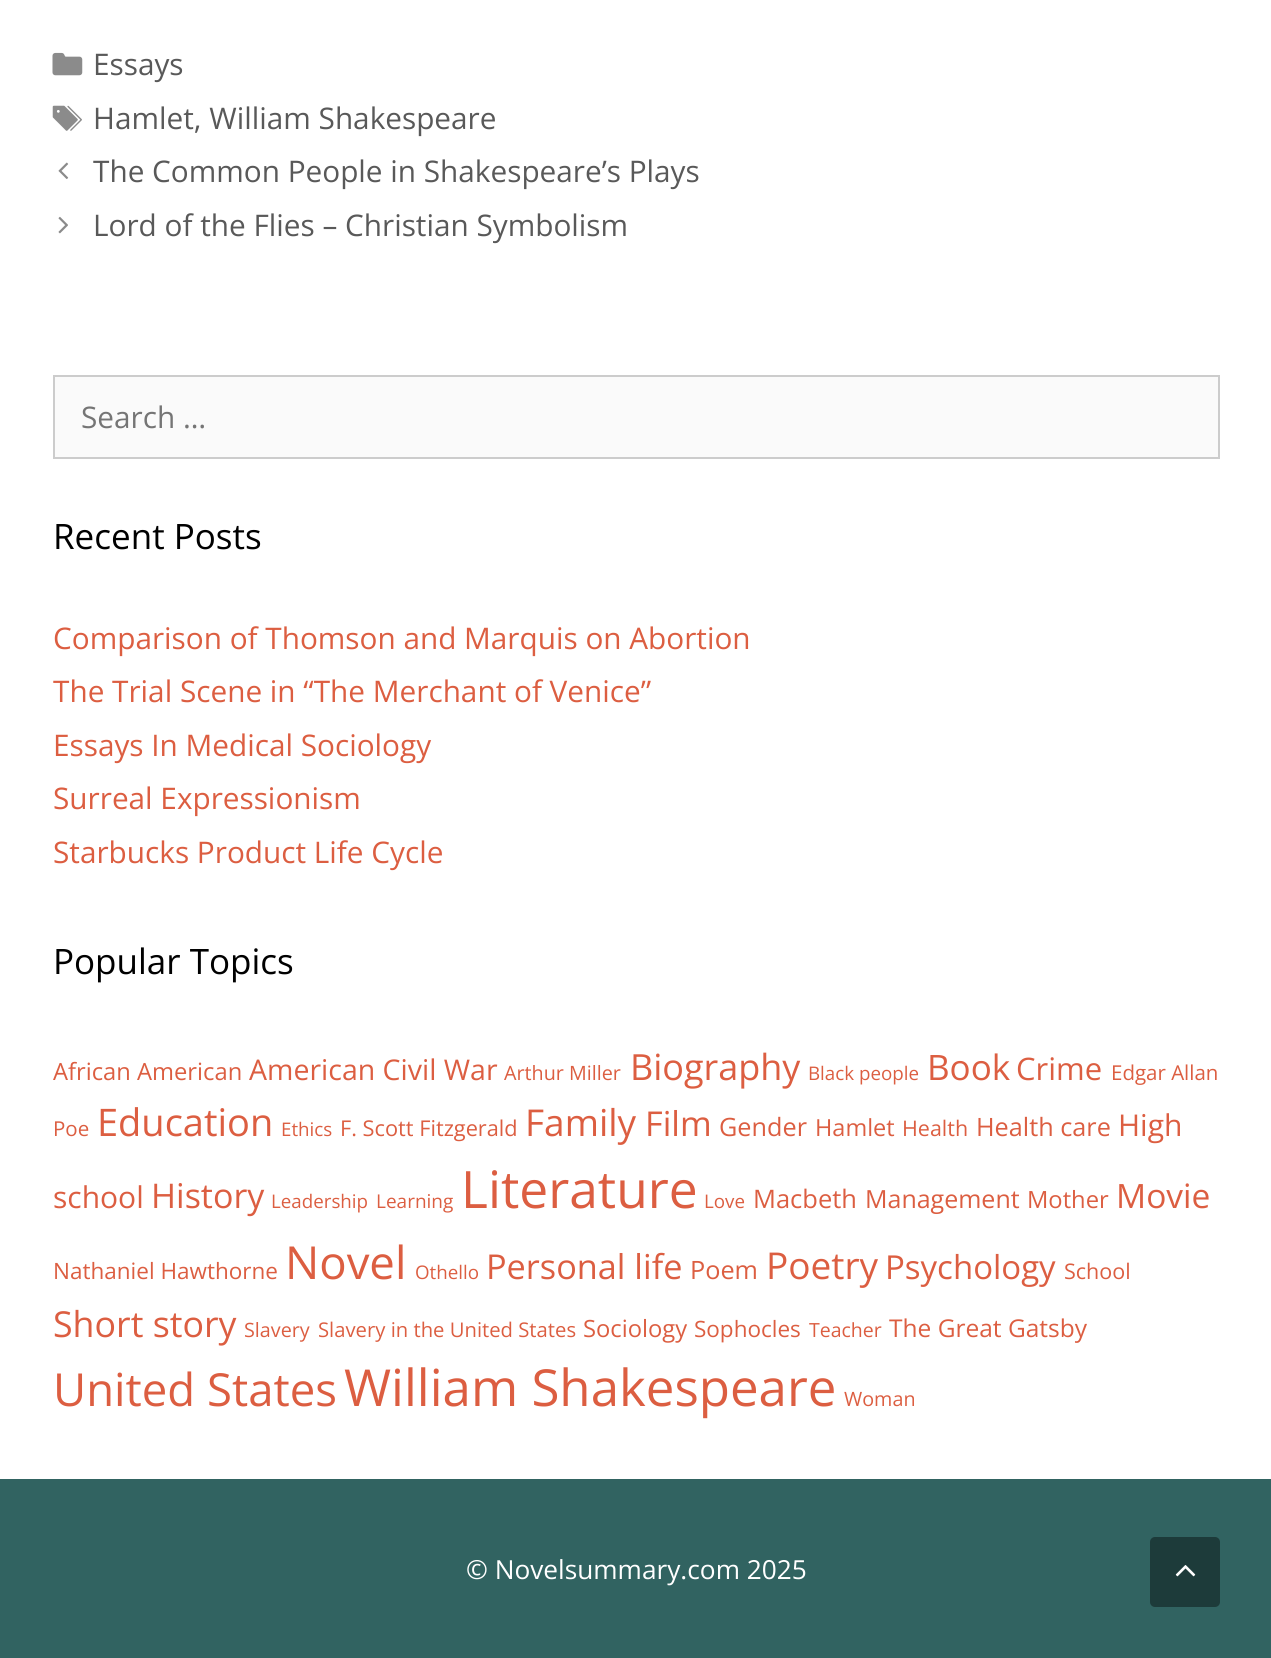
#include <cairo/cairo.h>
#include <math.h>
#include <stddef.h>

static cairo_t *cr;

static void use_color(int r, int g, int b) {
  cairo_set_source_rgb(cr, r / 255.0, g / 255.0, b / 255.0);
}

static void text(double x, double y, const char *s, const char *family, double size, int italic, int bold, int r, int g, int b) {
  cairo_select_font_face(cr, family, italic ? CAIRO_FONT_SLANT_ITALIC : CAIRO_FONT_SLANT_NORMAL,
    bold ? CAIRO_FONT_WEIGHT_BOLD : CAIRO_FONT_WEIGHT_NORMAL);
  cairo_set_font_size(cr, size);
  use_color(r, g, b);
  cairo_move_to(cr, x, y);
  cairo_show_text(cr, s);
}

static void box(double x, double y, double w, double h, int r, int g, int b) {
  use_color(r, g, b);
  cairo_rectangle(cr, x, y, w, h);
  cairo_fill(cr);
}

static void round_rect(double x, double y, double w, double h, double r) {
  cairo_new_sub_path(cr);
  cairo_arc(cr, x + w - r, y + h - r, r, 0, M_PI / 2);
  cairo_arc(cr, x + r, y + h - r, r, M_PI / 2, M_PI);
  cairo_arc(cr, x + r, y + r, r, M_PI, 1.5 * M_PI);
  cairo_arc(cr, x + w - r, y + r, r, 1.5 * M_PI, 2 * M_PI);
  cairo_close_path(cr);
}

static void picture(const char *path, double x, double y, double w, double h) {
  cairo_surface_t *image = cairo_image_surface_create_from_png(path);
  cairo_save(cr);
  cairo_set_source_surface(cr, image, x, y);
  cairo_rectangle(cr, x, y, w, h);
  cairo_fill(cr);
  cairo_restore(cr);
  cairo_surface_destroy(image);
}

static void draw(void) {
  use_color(255, 255, 255);
  cairo_paint(cr);
  picture("img_01.png", 52, 52, 31, 24);
  picture("img_02.png", 52, 105, 30, 26);
  picture("img_03.png", 58, 162, 11, 17);
  picture("img_04.png", 58, 216, 10, 18);
  use_color(250, 250, 250);
  cairo_rectangle(cr, 54, 376, 1165, 82);
  cairo_fill_preserve(cr);
  use_color(204, 204, 204);
  cairo_stroke(cr);
  box(0, 1479, 1271, 179, 49, 99, 97);
  use_color(29, 59, 58);
  round_rect(1150, 1537, 70, 70, 5);
  cairo_fill(cr);
  picture("img_05.png", 1175, 1565, 21, 12);
  text(93, 75, "Essays", "Open Sans", 29.75, 0, 0, 89, 89, 89);
  text(93, 129, "Hamlet, William Shakespeare", "Open Sans", 29.75, 0, 0, 89, 89, 89);
  text(93, 182, "The Common People in Shakespeare’s Plays", "Open Sans", 29.75, 0, 0, 89, 89, 89);
  text(93, 236, "Lord of the Flies – Christian Symbolism", "Open Sans", 29.75, 0, 0, 89, 89, 89);
  text(81, 428, "Search …", "Open Sans", 29.75, 0, 0, 117, 117, 117);
  text(53, 549, "Recent Posts", "Open Sans", 35, 0, 0, 0, 0, 0);
  text(53, 649, "Comparison of Thomson and Marquis on Abortion", "Open Sans", 29.75, 0, 0, 220, 94, 65);
  text(53, 702, "The Trial Scene in “The Merchant of Venice”", "Open Sans", 29.75, 0, 0, 220, 94, 65);
  text(53, 756, "Essays In Medical Sociology", "Open Sans", 29.75, 0, 0, 220, 94, 65);
  text(53, 809, "Surreal Expressionism", "Open Sans", 29.75, 0, 0, 220, 94, 65);
  text(53, 863, "Starbucks Product Life Cycle", "Open Sans", 29.75, 0, 0, 220, 94, 65);
  text(53, 974, "Popular Topics", "Open Sans", 35, 0, 0, 0, 0, 0);
  text(53, 1080, "African American", "Open Sans", 23.75, 0, 0, 220, 94, 65);
  text(249, 1080, "American Civil War", "Open Sans", 28.5, 0, 0, 220, 94, 65);
  text(504, 1080, "Arthur Miller", "Open Sans", 19.75, 0, 0, 220, 94, 65);
  text(630, 1080, "Biography", "Open Sans", 36, 0, 0, 220, 94, 65);
  text(808, 1080, "Black people", "Open Sans", 18.75, 0, 0, 220, 94, 65);
  text(927, 1080, "Book", "Open Sans", 35, 0, 0, 220, 94, 65);
  text(1016, 1080, "Crime", "Open Sans", 31, 0, 0, 220, 94, 65);
  text(1111, 1080, "Edgar Allan", "Open Sans", 20.5, 0, 0, 220, 94, 65);
  text(53, 1136, "Poe", "Open Sans", 20.5, 0, 0, 220, 94, 65);
  text(97, 1136, "Education", "Open Sans", 38, 0, 0, 220, 94, 65);
  text(281, 1136, "Ethics", "Open Sans", 18.75, 0, 0, 220, 94, 65);
  text(340, 1136, "F. Scott Fitzgerald", "Open Sans", 21.75, 0, 0, 220, 94, 65);
  text(525, 1136, "Family", "Open Sans", 37, 0, 0, 220, 94, 65);
  text(645, 1136, "Film", "Open Sans", 34.25, 0, 0, 220, 94, 65);
  text(719, 1136, "Gender", "Open Sans", 25.25, 0, 0, 220, 94, 65);
  text(815, 1136, "Hamlet", "Open Sans", 23.5, 0, 0, 220, 94, 65);
  text(902, 1136, "Health", "Open Sans", 21.5, 0, 0, 220, 94, 65);
  text(976, 1136, "Health care", "Open Sans", 25.25, 0, 0, 220, 94, 65);
  text(1118, 1136, "High", "Open Sans", 30, 0, 0, 220, 94, 65);
  text(53, 1208, "school", "Open Sans", 30, 0, 0, 220, 94, 65);
  text(151, 1208, "History", "Open Sans", 34, 0, 0, 220, 94, 65);
  text(271, 1208, "Leadership", "Open Sans", 18.75, 0, 0, 220, 94, 65);
  text(376, 1208, "Learning", "Open Sans", 19, 0, 0, 220, 94, 65);
  text(461, 1208, "Literature", "Open Sans", 51.5, 0, 0, 220, 94, 65);
  text(704, 1208, "Love", "Open Sans", 18.75, 0, 0, 220, 94, 65);
  text(753, 1208, "Macbeth", "Open Sans", 25.5, 0, 0, 220, 94, 65);
  text(865, 1208, "Management", "Open Sans", 25, 0, 0, 220, 94, 65);
  text(1027, 1208, "Mother", "Open Sans", 23.75, 0, 0, 220, 94, 65);
  text(1116, 1208, "Movie", "Open Sans", 33.5, 0, 0, 220, 94, 65);
  text(53, 1279, "Nathaniel Hawthorne", "Open Sans", 22.5, 0, 0, 220, 94, 65);
  text(285, 1279, "Novel", "Open Sans", 45.5, 0, 0, 220, 94, 65);
  text(415, 1279, "Othello", "Open Sans", 18.75, 0, 0, 220, 94, 65);
  text(486, 1279, "Personal life", "Open Sans", 34.25, 0, 0, 220, 94, 65);
  text(690, 1279, "Poem", "Open Sans", 25.25, 0, 0, 220, 94, 65);
  text(766, 1279, "Poetry", "Open Sans", 37, 0, 0, 220, 94, 65);
  text(885, 1279, "Psychology", "Open Sans", 33, 0, 0, 220, 94, 65);
  text(1064, 1279, "School", "Open Sans", 21.5, 0, 0, 220, 94, 65);
  text(53, 1337, "Short story", "Open Sans", 35.75, 0, 0, 220, 94, 65);
  text(244, 1337, "Slavery", "Open Sans", 19.75, 0, 0, 220, 94, 65);
  text(318, 1337, "Slavery in the United States", "Open Sans", 20.25, 0, 0, 220, 94, 65);
  text(583, 1337, "Sociology", "Open Sans", 23.75, 0, 0, 220, 94, 65);
  text(694, 1337, "Sophocles", "Open Sans", 22.5, 0, 0, 220, 94, 65);
  text(809, 1337, "Teacher", "Open Sans", 19.5, 0, 0, 220, 94, 65);
  text(889, 1337, "The Great Gatsby", "Open Sans", 24.5, 0, 0, 220, 94, 65);
  text(53, 1406, "United States", "Open Sans", 45.5, 0, 0, 220, 94, 65);
  text(344, 1406, "William Shakespeare", "Open Sans", 51, 0, 0, 220, 94, 65);
  text(844, 1406, "Woman", "Open Sans", 19.75, 0, 0, 220, 94, 65);
  text(466, 1579, "© Novelsummary.com 2025", "Open Sans", 26.25, 0, 0, 255, 255, 255);
}

int main(void) {
  cairo_surface_t *surface = cairo_image_surface_create(CAIRO_FORMAT_RGB24, 1271, 1658);
  cr = cairo_create(surface);
  cairo_font_options_t *options = cairo_font_options_create();
  cairo_font_options_set_hint_metrics(options, CAIRO_HINT_METRICS_OFF);
  cairo_font_options_set_hint_style(options, CAIRO_HINT_STYLE_NONE);
  cairo_set_font_options(cr, options);
  cairo_set_miter_limit(cr, 4);
  draw();
  cairo_surface_write_to_png(surface, "out.png");
  cairo_font_options_destroy(options);
  cairo_destroy(cr);
  cairo_surface_destroy(surface);
  return 0;
}
